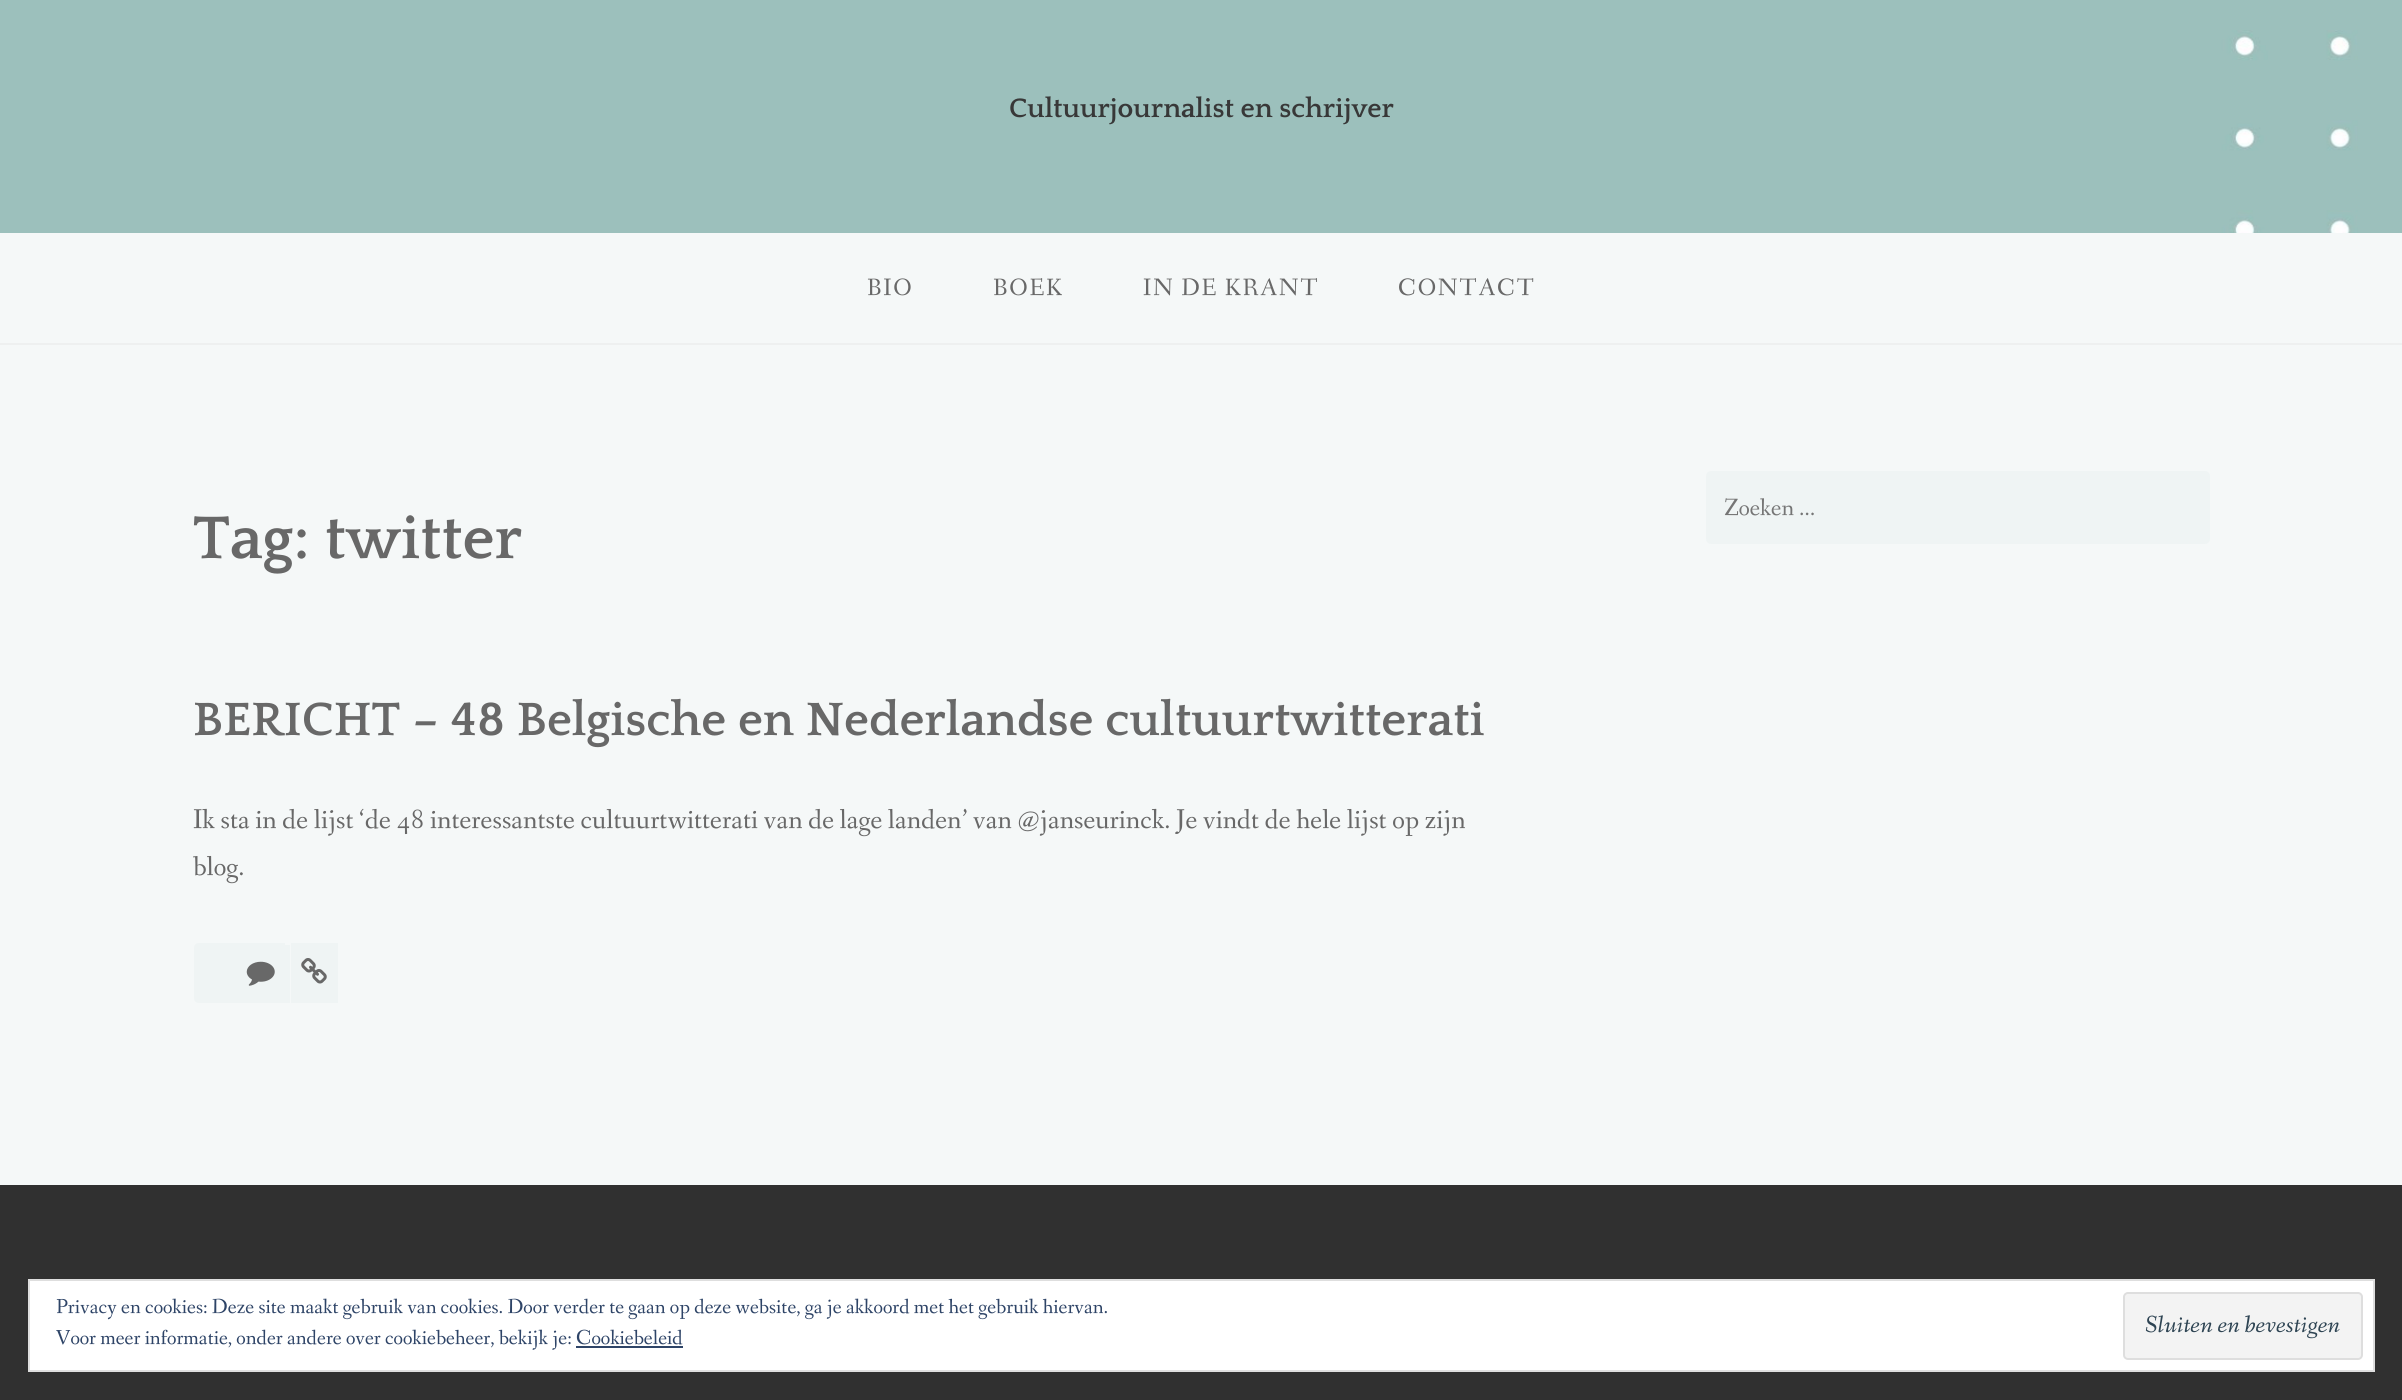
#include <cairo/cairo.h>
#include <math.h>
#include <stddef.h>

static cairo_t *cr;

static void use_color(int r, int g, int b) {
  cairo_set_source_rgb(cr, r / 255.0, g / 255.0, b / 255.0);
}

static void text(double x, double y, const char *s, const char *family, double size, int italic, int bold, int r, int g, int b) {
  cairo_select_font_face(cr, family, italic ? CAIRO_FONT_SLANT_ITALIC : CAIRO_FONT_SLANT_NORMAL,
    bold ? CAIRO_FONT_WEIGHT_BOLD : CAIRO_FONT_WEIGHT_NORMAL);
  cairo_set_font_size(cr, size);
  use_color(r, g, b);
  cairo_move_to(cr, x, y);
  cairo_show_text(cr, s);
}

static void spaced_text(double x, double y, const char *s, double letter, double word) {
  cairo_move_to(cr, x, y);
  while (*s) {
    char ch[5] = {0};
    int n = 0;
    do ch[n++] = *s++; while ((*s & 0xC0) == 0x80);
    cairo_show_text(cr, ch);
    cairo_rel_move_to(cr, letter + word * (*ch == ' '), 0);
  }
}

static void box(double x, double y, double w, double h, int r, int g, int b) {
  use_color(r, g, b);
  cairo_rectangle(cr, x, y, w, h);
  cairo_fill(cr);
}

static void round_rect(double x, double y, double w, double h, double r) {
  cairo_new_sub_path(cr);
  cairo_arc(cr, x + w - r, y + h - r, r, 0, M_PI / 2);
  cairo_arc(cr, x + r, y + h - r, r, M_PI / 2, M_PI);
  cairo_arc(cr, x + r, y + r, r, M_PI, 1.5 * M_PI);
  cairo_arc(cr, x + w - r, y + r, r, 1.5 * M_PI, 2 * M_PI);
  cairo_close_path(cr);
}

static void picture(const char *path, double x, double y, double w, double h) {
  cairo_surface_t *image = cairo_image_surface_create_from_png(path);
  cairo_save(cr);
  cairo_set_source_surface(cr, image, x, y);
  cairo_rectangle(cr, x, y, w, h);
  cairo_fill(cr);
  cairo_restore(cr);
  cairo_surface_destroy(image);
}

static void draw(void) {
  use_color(245, 248, 248);
  cairo_paint(cr);
  picture("img_01.png", 0, 0, 2402, 233);
  box(0, 343, 2402, 2, 238, 240, 240);
  use_color(239, 244, 244);
  round_rect(1706, 471, 504, 73, 5);
  cairo_fill(cr);
  cairo_new_path(cr);
  cairo_move_to(cr, 199, 943);
  cairo_line_to(cr, 285, 943);
  cairo_line_to(cr, 285, 1003);
  cairo_line_to(cr, 199, 1003);
  cairo_curve_to(cr, 196, 1003, 194, 1001, 194, 998);
  cairo_line_to(cr, 194, 948);
  cairo_curve_to(cr, 194, 945, 196, 943, 199, 943);
  cairo_close_path(cr);
  cairo_fill(cr);
  box(285, 945, 5, 58, 239, 244, 244);
  box(291, 943, 47, 60, 239, 244, 244);
  picture("img_02.png", 246, 961, 29, 25);
  picture("img_03.png", 301, 958, 26, 26);
  box(0, 1185, 2402, 215, 48, 48, 48);
  use_color(255, 255, 255);
  cairo_rectangle(cr, 29, 1280, 2345, 91);
  cairo_fill_preserve(cr);
  use_color(222, 222, 222);
  cairo_stroke(cr);
  use_color(243, 243, 243);
  round_rect(2124, 1293, 238, 66, 4);
  cairo_fill_preserve(cr);
  use_color(222, 222, 222);
  cairo_stroke(cr);
  box(576, 1346, 107, 2, 46, 68, 103);
  text(1009, 117, "Cultuurjournalist en schrijver", "Quattrocento", 28, 0, 1, 56, 56, 56);
  cairo_select_font_face(cr, "Fanwood Text", CAIRO_FONT_SLANT_NORMAL, CAIRO_FONT_WEIGHT_NORMAL);
  cairo_set_font_size(cr, 24.5);
  use_color(104, 104, 104);
  spaced_text(867, 295, "BIO", 1.75, 0);
  spaced_text(993, 295, "BOEK", 1.75, 0);
  spaced_text(1143, 295, "IN DE KRANT", 1.75, 0);
  spaced_text(1398, 295, "CONTACT", 1.75, 0);
  text(1724, 515, "Zoeken …", "Fanwood Text", 24.5, 0, 0, 117, 117, 117);
  text(193, 558, "Tag: twitter", "Quattrocento", 63, 0, 1, 104, 104, 104);
  text(193, 735, "BERICHT – 48 Belgische en Nederlandse cultuurtwitterati", "Quattrocento", 49, 0, 1, 104, 104, 104);
  text(193, 828, "Ik sta in de lijst ‘de 48 interessantste cultuurtwitterati van de lage landen’ van @janseurinck. Je vindt de hele lijst op zijn", "Fanwood Text", 28, 0, 0, 104, 104, 104);
  text(193, 875, "blog.", "Fanwood Text", 28, 0, 0, 104, 104, 104);
  text(56, 1313, "Privacy en cookies: Deze site maakt gebruik van cookies. Door verder te gaan op deze website, ga je akkoord met het gebruik hiervan.", "Fanwood Text", 21, 0, 0, 46, 68, 103);
  text(56, 1344, "Voor meer informatie, onder andere over cookiebeheer, bekijk je: Cookiebeleid", "Fanwood Text", 21, 0, 0, 46, 68, 103);
  text(2145, 1332, "Sluiten en bevestigen", "Fanwood Text", 24.5, 1, 0, 46, 68, 83);
}

int main(void) {
  cairo_surface_t *surface = cairo_image_surface_create(CAIRO_FORMAT_RGB24, 2402, 1400);
  cr = cairo_create(surface);
  cairo_font_options_t *options = cairo_font_options_create();
  cairo_font_options_set_hint_metrics(options, CAIRO_HINT_METRICS_OFF);
  cairo_font_options_set_hint_style(options, CAIRO_HINT_STYLE_NONE);
  cairo_set_font_options(cr, options);
  cairo_set_miter_limit(cr, 4);
  draw();
  cairo_surface_write_to_png(surface, "out.png");
  cairo_font_options_destroy(options);
  cairo_destroy(cr);
  cairo_surface_destroy(surface);
  return 0;
}
